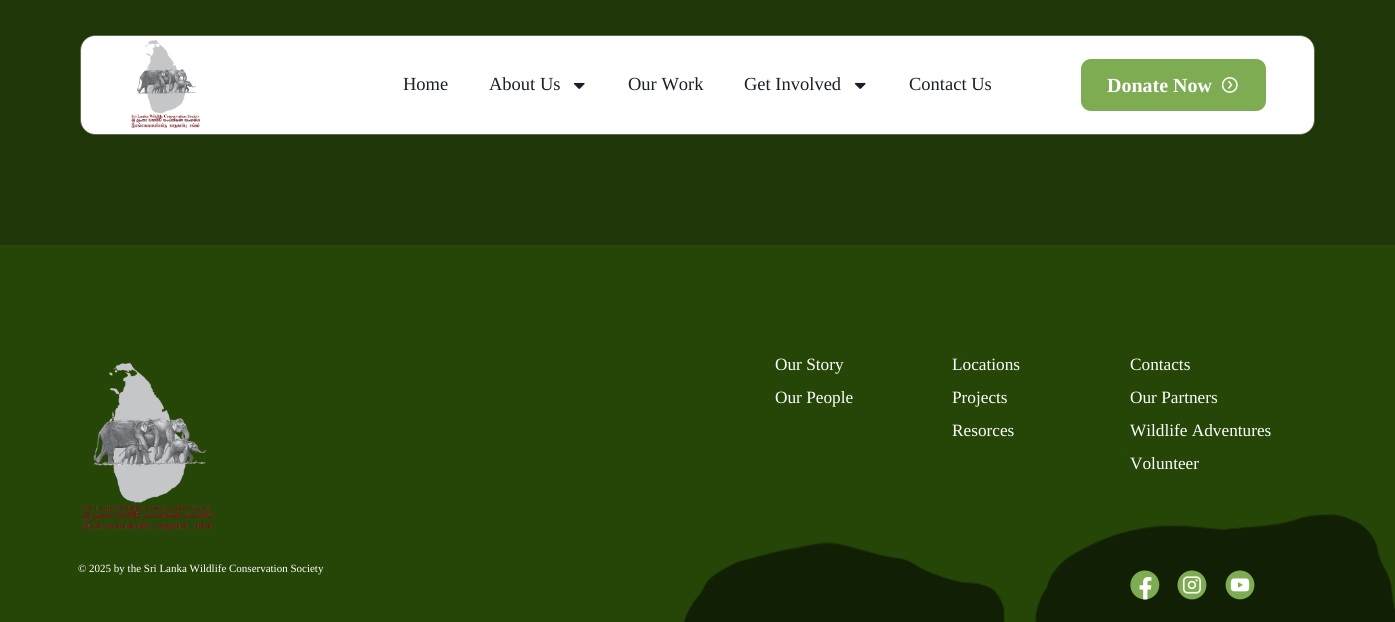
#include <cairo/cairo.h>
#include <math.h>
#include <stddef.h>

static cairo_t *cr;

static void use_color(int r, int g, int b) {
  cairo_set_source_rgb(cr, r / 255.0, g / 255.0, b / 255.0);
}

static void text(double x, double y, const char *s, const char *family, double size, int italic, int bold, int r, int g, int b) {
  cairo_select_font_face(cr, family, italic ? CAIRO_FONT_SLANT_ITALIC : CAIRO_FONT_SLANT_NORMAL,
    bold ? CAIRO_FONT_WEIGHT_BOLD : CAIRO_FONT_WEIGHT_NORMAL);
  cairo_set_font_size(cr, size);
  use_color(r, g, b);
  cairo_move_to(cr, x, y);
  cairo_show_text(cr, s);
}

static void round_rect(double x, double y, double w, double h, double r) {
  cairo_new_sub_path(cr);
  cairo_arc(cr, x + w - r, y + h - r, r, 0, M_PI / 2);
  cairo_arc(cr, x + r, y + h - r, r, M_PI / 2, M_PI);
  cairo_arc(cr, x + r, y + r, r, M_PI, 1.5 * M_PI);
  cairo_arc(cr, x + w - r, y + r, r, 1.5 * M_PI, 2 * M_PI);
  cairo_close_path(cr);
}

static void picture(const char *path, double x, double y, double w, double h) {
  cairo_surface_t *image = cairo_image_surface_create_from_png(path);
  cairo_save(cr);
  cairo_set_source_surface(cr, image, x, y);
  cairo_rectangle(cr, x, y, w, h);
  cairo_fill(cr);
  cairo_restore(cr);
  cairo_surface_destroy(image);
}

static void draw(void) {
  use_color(30, 54, 8);
  cairo_paint(cr);
  use_color(53, 74, 33);
  round_rect(80, 35, 1235, 100, 16);
  cairo_fill(cr);
  round_rect(80.5, 35.5, 1234, 99, 15.5);
  cairo_set_source_rgba(cr, 1, 1, 1, 0.2);
  cairo_set_line_width(cr, 1);
  cairo_stroke(cr);
  use_color(255, 255, 255);
  round_rect(81, 36, 1233, 98, 14);
  cairo_fill(cr);
  picture("img_01.png", 131, 40, 69, 88);
  picture("img_02.png", 573, 82, 12, 7);
  picture("img_02.png", 854, 82, 12, 7);
  use_color(126, 172, 82);
  round_rect(1082, 60, 183, 50, 9);
  cairo_fill_preserve(cr);
  cairo_set_line_width(cr, 2);
  cairo_stroke(cr);
  picture("img_03.png", 1221, 77, 17, 16);
  picture("img_04.png", 0, 245, 1395, 377);
  picture("img_05.png", 1130, 570, 30, 30);
  picture("img_06.png", 1177, 570, 30, 30);
  picture("img_07.png", 1225, 570, 30, 30);
  picture("img_08.png", 82, 362, 132, 169);
  text(403, 90, "Home", "Liberation Serif", 18.5, 0, 0, 26, 31, 41);
  text(489, 90, "About Us", "Liberation Serif", 18.5, 0, 0, 26, 31, 41);
  text(628, 90, "Our Work", "Liberation Serif", 18.5, 0, 0, 26, 31, 41);
  text(744, 90, "Get Involved", "Liberation Serif", 18.5, 0, 0, 26, 31, 41);
  text(909, 90, "Contact Us", "Liberation Serif", 18.5, 0, 0, 26, 31, 41);
  text(1107, 92, "Donate Now", "Liberation Serif", 20, 0, 1, 255, 255, 255);
  text(775, 370, "Our Story", "Liberation Serif", 17.25, 0, 0, 255, 255, 255);
  text(775, 403, "Our People", "Liberation Serif", 17.25, 0, 0, 255, 255, 255);
  text(952, 370, "Locations", "Liberation Serif", 17.25, 0, 0, 255, 255, 255);
  text(952, 403, "Projects", "Liberation Serif", 17.25, 0, 0, 255, 255, 255);
  text(952, 436, "Resorces", "Liberation Serif", 17.25, 0, 0, 255, 255, 255);
  text(1130, 370, "Contacts", "Liberation Serif", 17.25, 0, 0, 255, 255, 255);
  text(1130, 403, "Our Partners", "Liberation Serif", 17.25, 0, 0, 255, 255, 255);
  text(1130, 436, "Wildlife Adventures", "Liberation Serif", 17.25, 0, 0, 255, 255, 255);
  text(1130, 469, "Volunteer", "Liberation Serif", 17.25, 0, 0, 255, 255, 255);
  text(78, 572, "© 2025 by the Sri Lanka Wildlife Conservation Society", "Liberation Serif", 11, 0, 0, 255, 255, 255);
}

int main(void) {
  cairo_surface_t *surface = cairo_image_surface_create(CAIRO_FORMAT_RGB24, 1395, 622);
  cr = cairo_create(surface);
  cairo_font_options_t *options = cairo_font_options_create();
  cairo_font_options_set_hint_metrics(options, CAIRO_HINT_METRICS_OFF);
  cairo_font_options_set_hint_style(options, CAIRO_HINT_STYLE_NONE);
  cairo_set_font_options(cr, options);
  cairo_set_miter_limit(cr, 4);
  draw();
  cairo_surface_write_to_png(surface, "out.png");
  cairo_font_options_destroy(options);
  cairo_destroy(cr);
  cairo_surface_destroy(surface);
  return 0;
}
